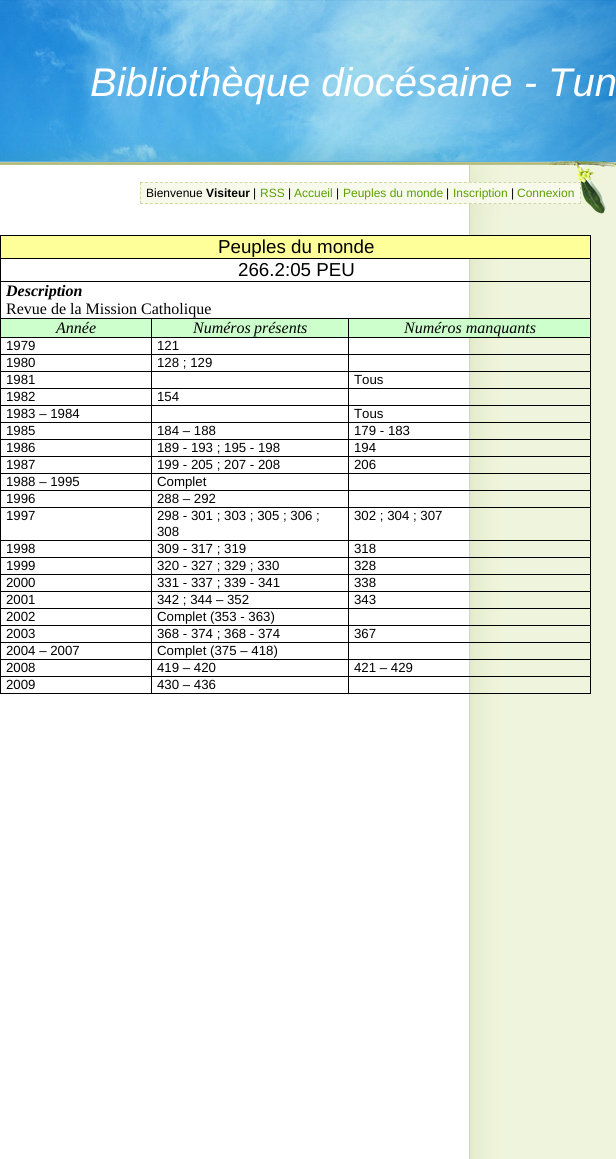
#include <cairo/cairo.h>
#include <math.h>
#include <stddef.h>

static cairo_t *cr;

static void use_color(int r, int g, int b) {
  cairo_set_source_rgb(cr, r / 255.0, g / 255.0, b / 255.0);
}

static void text(double x, double y, const char *s, const char *family, double size, int italic, int bold, int r, int g, int b) {
  cairo_select_font_face(cr, family, italic ? CAIRO_FONT_SLANT_ITALIC : CAIRO_FONT_SLANT_NORMAL,
    bold ? CAIRO_FONT_WEIGHT_BOLD : CAIRO_FONT_WEIGHT_NORMAL);
  cairo_set_font_size(cr, size);
  use_color(r, g, b);
  cairo_move_to(cr, x, y);
  cairo_show_text(cr, s);
}

static void box(double x, double y, double w, double h, int r, int g, int b) {
  use_color(r, g, b);
  cairo_rectangle(cr, x, y, w, h);
  cairo_fill(cr);
}

static void picture(const char *path, double x, double y, double w, double h) {
  cairo_surface_t *image = cairo_image_surface_create_from_png(path);
  cairo_save(cr);
  cairo_set_source_surface(cr, image, x, y);
  cairo_rectangle(cr, x, y, w, h);
  cairo_fill(cr);
  cairo_restore(cr);
  cairo_surface_destroy(image);
}

static void draw(void) {
  use_color(255, 255, 255);
  cairo_paint(cr);
  picture("img_01.png", 0, 216, 616, 943);
  picture("img_02.png", 0, 0, 616, 216);
  box(140, 182, 441, 22, 247, 250, 235);
  cairo_new_path(cr);
  cairo_move_to(cr, 140, 182.5);
  cairo_line_to(cr, 581, 182.5);
  use_color(207, 217, 168);
  cairo_set_line_width(cr, 1);
  cairo_set_dash(cr, (double[]){3, 1.98}, 2, 0);
  cairo_stroke(cr);
  cairo_new_path(cr);
  cairo_move_to(cr, 580.5, 182);
  cairo_line_to(cr, 580.5, 204);
  cairo_set_dash(cr, (double[]){3, 1.75}, 2, 0);
  cairo_stroke(cr);
  cairo_new_path(cr);
  cairo_move_to(cr, 140, 203.5);
  cairo_line_to(cr, 581, 203.5);
  cairo_set_dash(cr, (double[]){3, 1.98}, 2, 0);
  cairo_stroke(cr);
  cairo_new_path(cr);
  cairo_move_to(cr, 140.5, 182);
  cairo_line_to(cr, 140.5, 204);
  cairo_set_dash(cr, (double[]){3, 1.75}, 2, 0);
  cairo_stroke(cr);
  box(1, 236, 589, 22, 255, 255, 153);
  box(0, 235, 591, 1, 0, 0, 0);
  box(590, 258, 1, 436, 0, 0, 0);
  box(590, 235, 1, 24, 0, 0, 0);
  box(348, 693, 243, 1, 0, 0, 0);
  box(348, 676, 1, 18, 0, 0, 0);
  box(348, 676, 243, 1, 0, 0, 0);
  box(348, 659, 1, 18, 0, 0, 0);
  box(348, 659, 243, 1, 0, 0, 0);
  box(348, 642, 1, 18, 0, 0, 0);
  box(348, 642, 243, 1, 0, 0, 0);
  box(348, 625, 1, 18, 0, 0, 0);
  box(348, 625, 243, 1, 0, 0, 0);
  box(348, 608, 1, 18, 0, 0, 0);
  box(348, 608, 243, 1, 0, 0, 0);
  box(348, 591, 1, 18, 0, 0, 0);
  box(348, 591, 243, 1, 0, 0, 0);
  box(348, 574, 1, 18, 0, 0, 0);
  box(348, 574, 243, 1, 0, 0, 0);
  box(348, 557, 1, 18, 0, 0, 0);
  box(348, 557, 243, 1, 0, 0, 0);
  box(348, 540, 1, 18, 0, 0, 0);
  box(348, 540, 243, 1, 0, 0, 0);
  box(348, 507, 1, 34, 0, 0, 0);
  box(348, 507, 243, 1, 0, 0, 0);
  box(348, 490, 1, 18, 0, 0, 0);
  box(348, 490, 243, 1, 0, 0, 0);
  box(348, 473, 1, 18, 0, 0, 0);
  box(348, 473, 243, 1, 0, 0, 0);
  box(348, 456, 1, 18, 0, 0, 0);
  box(348, 456, 243, 1, 0, 0, 0);
  box(348, 439, 1, 18, 0, 0, 0);
  box(348, 439, 243, 1, 0, 0, 0);
  box(348, 422, 1, 18, 0, 0, 0);
  box(348, 422, 243, 1, 0, 0, 0);
  box(348, 405, 1, 18, 0, 0, 0);
  box(348, 405, 243, 1, 0, 0, 0);
  box(348, 388, 1, 18, 0, 0, 0);
  box(348, 388, 243, 1, 0, 0, 0);
  box(348, 371, 1, 18, 0, 0, 0);
  box(348, 371, 243, 1, 0, 0, 0);
  box(348, 354, 1, 18, 0, 0, 0);
  box(348, 354, 243, 1, 0, 0, 0);
  box(348, 337, 1, 18, 0, 0, 0);
  box(348, 337, 243, 1, 0, 0, 0);
  box(348, 318, 1, 20, 0, 0, 0);
  box(151, 693, 198, 1, 0, 0, 0);
  box(151, 676, 1, 18, 0, 0, 0);
  box(151, 676, 198, 1, 0, 0, 0);
  box(151, 659, 1, 18, 0, 0, 0);
  box(151, 659, 198, 1, 0, 0, 0);
  box(151, 642, 1, 18, 0, 0, 0);
  box(151, 642, 198, 1, 0, 0, 0);
  box(151, 625, 1, 18, 0, 0, 0);
  box(151, 625, 198, 1, 0, 0, 0);
  box(151, 608, 1, 18, 0, 0, 0);
  box(151, 608, 198, 1, 0, 0, 0);
  box(151, 591, 1, 18, 0, 0, 0);
  box(151, 591, 198, 1, 0, 0, 0);
  box(151, 574, 1, 18, 0, 0, 0);
  box(151, 574, 198, 1, 0, 0, 0);
  box(151, 557, 1, 18, 0, 0, 0);
  box(151, 557, 198, 1, 0, 0, 0);
  box(151, 540, 1, 18, 0, 0, 0);
  box(151, 540, 198, 1, 0, 0, 0);
  box(151, 507, 1, 34, 0, 0, 0);
  box(151, 507, 198, 1, 0, 0, 0);
  box(151, 490, 1, 18, 0, 0, 0);
  box(151, 490, 198, 1, 0, 0, 0);
  box(151, 473, 1, 18, 0, 0, 0);
  box(151, 473, 198, 1, 0, 0, 0);
  box(151, 456, 1, 18, 0, 0, 0);
  box(151, 456, 198, 1, 0, 0, 0);
  box(151, 439, 1, 18, 0, 0, 0);
  box(151, 439, 198, 1, 0, 0, 0);
  box(151, 422, 1, 18, 0, 0, 0);
  box(151, 422, 198, 1, 0, 0, 0);
  box(151, 405, 1, 18, 0, 0, 0);
  box(151, 405, 198, 1, 0, 0, 0);
  box(151, 388, 1, 18, 0, 0, 0);
  box(151, 388, 198, 1, 0, 0, 0);
  box(151, 371, 1, 18, 0, 0, 0);
  box(151, 371, 198, 1, 0, 0, 0);
  box(151, 354, 1, 18, 0, 0, 0);
  box(151, 354, 198, 1, 0, 0, 0);
  box(151, 337, 1, 18, 0, 0, 0);
  box(151, 337, 198, 1, 0, 0, 0);
  box(151, 318, 1, 20, 0, 0, 0);
  box(0, 693, 152, 1, 0, 0, 0);
  box(0, 676, 1, 18, 0, 0, 0);
  box(0, 676, 152, 1, 0, 0, 0);
  box(0, 659, 1, 18, 0, 0, 0);
  box(0, 659, 152, 1, 0, 0, 0);
  box(0, 642, 1, 18, 0, 0, 0);
  box(0, 642, 152, 1, 0, 0, 0);
  box(0, 625, 1, 18, 0, 0, 0);
  box(0, 625, 152, 1, 0, 0, 0);
  box(0, 608, 1, 18, 0, 0, 0);
  box(0, 608, 152, 1, 0, 0, 0);
  box(0, 591, 1, 18, 0, 0, 0);
  box(0, 591, 152, 1, 0, 0, 0);
  box(0, 574, 1, 18, 0, 0, 0);
  box(0, 574, 152, 1, 0, 0, 0);
  box(0, 557, 1, 18, 0, 0, 0);
  box(0, 557, 152, 1, 0, 0, 0);
  box(0, 540, 1, 18, 0, 0, 0);
  box(0, 540, 152, 1, 0, 0, 0);
  box(0, 507, 1, 34, 0, 0, 0);
  box(0, 507, 152, 1, 0, 0, 0);
  box(0, 490, 1, 18, 0, 0, 0);
  box(0, 490, 152, 1, 0, 0, 0);
  box(0, 473, 1, 18, 0, 0, 0);
  box(0, 473, 152, 1, 0, 0, 0);
  box(0, 456, 1, 18, 0, 0, 0);
  box(0, 456, 152, 1, 0, 0, 0);
  box(0, 439, 1, 18, 0, 0, 0);
  box(0, 439, 152, 1, 0, 0, 0);
  box(0, 422, 1, 18, 0, 0, 0);
  box(0, 422, 152, 1, 0, 0, 0);
  box(0, 405, 1, 18, 0, 0, 0);
  box(0, 405, 152, 1, 0, 0, 0);
  box(0, 388, 1, 18, 0, 0, 0);
  box(0, 388, 152, 1, 0, 0, 0);
  box(0, 371, 1, 18, 0, 0, 0);
  box(0, 371, 152, 1, 0, 0, 0);
  box(0, 354, 1, 18, 0, 0, 0);
  box(0, 354, 152, 1, 0, 0, 0);
  box(0, 337, 1, 18, 0, 0, 0);
  box(0, 337, 152, 1, 0, 0, 0);
  box(0, 318, 1, 20, 0, 0, 0);
  box(0, 318, 591, 1, 0, 0, 0);
  box(0, 281, 1, 38, 0, 0, 0);
  box(0, 281, 591, 1, 0, 0, 0);
  box(0, 258, 1, 24, 0, 0, 0);
  box(0, 258, 591, 1, 0, 0, 0);
  box(0, 235, 1, 24, 0, 0, 0);
  box(1, 319, 150, 18, 204, 255, 204);
  box(152, 319, 196, 18, 204, 255, 204);
  box(349, 319, 241, 18, 204, 255, 204);
  text(90, 96, "Bibliothèque diocésaine - Tun", "Liberation Sans", 40, 1, 0, 255, 255, 255);
  text(146, 197, "Bienvenue", "Liberation Sans", 12, 0, 0, 0, 0, 0);
  text(206, 197, "Visiteur", "Liberation Sans", 12, 0, 1, 0, 0, 0);
  text(253, 197, "|", "Liberation Sans", 12, 0, 0, 0, 0, 0);
  text(260, 197, "RSS", "Liberation Sans", 12, 0, 0, 92, 159, 0);
  text(288, 197, "|", "Liberation Sans", 12, 0, 0, 0, 0, 0);
  text(294, 197, "Accueil", "Liberation Sans", 12, 0, 0, 92, 159, 0);
  text(336, 197, "|", "Liberation Sans", 12, 0, 0, 0, 0, 0);
  text(343, 197, "Peuples du monde", "Liberation Sans", 12, 0, 0, 92, 159, 0);
  text(446, 197, "|", "Liberation Sans", 12, 0, 0, 0, 0, 0);
  text(453, 197, "Inscription", "Liberation Sans", 12, 0, 0, 92, 159, 0);
  text(511, 197, "|", "Liberation Sans", 12, 0, 0, 0, 0, 0);
  text(517, 197, "Connexion", "Liberation Sans", 12, 0, 0, 92, 159, 0);
  text(218, 253, "Peuples du monde", "Liberation Sans", 18.75, 0, 0, 0, 0, 0);
  text(238, 276, "266.2:05 PEU", "Liberation Sans", 18.75, 0, 0, 0, 0, 0);
  text(6, 296, "Description", "Liberation Serif", 16, 1, 1, 0, 0, 0);
  text(6, 314, "Revue de la Mission Catholique", "Liberation Serif", 16, 0, 0, 0, 0, 0);
  text(56, 333, "Année", "Liberation Serif", 16, 1, 0, 0, 0, 0);
  text(193, 333, "Numéros", "Liberation Serif", 16, 1, 0, 0, 0, 0);
  text(254, 333, "présents", "Liberation Serif", 16, 1, 0, 0, 0, 0);
  text(404, 333, "Numéros manquants", "Liberation Serif", 16, 1, 0, 0, 0, 0);
  text(6, 350, "1979", "Liberation Sans", 13.25, 0, 0, 0, 0, 0);
  text(157, 350, "121", "Liberation Sans", 13.25, 0, 0, 0, 0, 0);
  text(6, 367, "1980", "Liberation Sans", 13.25, 0, 0, 0, 0, 0);
  text(157, 367, "128 ; 129", "Liberation Sans", 13.25, 0, 0, 0, 0, 0);
  text(6, 384, "1981", "Liberation Sans", 13.25, 0, 0, 0, 0, 0);
  text(354, 384, "Tous", "Liberation Sans", 13.25, 0, 0, 0, 0, 0);
  text(6, 401, "1982", "Liberation Sans", 13.25, 0, 0, 0, 0, 0);
  text(157, 401, "154", "Liberation Sans", 13.25, 0, 0, 0, 0, 0);
  text(6, 418, "1983 – 1984", "Liberation Sans", 13.25, 0, 0, 0, 0, 0);
  text(354, 418, "Tous", "Liberation Sans", 13.25, 0, 0, 0, 0, 0);
  text(6, 435, "1985", "Liberation Sans", 13.25, 0, 0, 0, 0, 0);
  text(157, 435, "184 – 188", "Liberation Sans", 13.25, 0, 0, 0, 0, 0);
  text(354, 435, "179 - 183", "Liberation Sans", 13.25, 0, 0, 0, 0, 0);
  text(6, 452, "1986", "Liberation Sans", 13.25, 0, 0, 0, 0, 0);
  text(157, 452, "189 - 193 ; 195 - 198", "Liberation Sans", 13.25, 0, 0, 0, 0, 0);
  text(354, 452, "194", "Liberation Sans", 13.25, 0, 0, 0, 0, 0);
  text(6, 469, "1987", "Liberation Sans", 13.25, 0, 0, 0, 0, 0);
  text(157, 469, "199 - 205 ; 207 - 208", "Liberation Sans", 13.25, 0, 0, 0, 0, 0);
  text(354, 469, "206", "Liberation Sans", 13.25, 0, 0, 0, 0, 0);
  text(6, 486, "1988 – 1995", "Liberation Sans", 13.25, 0, 0, 0, 0, 0);
  text(157, 486, "Complet", "Liberation Sans", 13.25, 0, 0, 0, 0, 0);
  text(6, 503, "1996", "Liberation Sans", 13.25, 0, 0, 0, 0, 0);
  text(157, 503, "288 – 292", "Liberation Sans", 13.25, 0, 0, 0, 0, 0);
  text(6, 520, "1997", "Liberation Sans", 13.25, 0, 0, 0, 0, 0);
  text(157, 520, "298 - 301 ; 303 ; 305 ; 306 ;", "Liberation Sans", 13.25, 0, 0, 0, 0, 0);
  text(157, 536, "308", "Liberation Sans", 13.25, 0, 0, 0, 0, 0);
  text(354, 520, "302 ; 304 ; 307", "Liberation Sans", 13.25, 0, 0, 0, 0, 0);
  text(6, 553, "1998", "Liberation Sans", 13.25, 0, 0, 0, 0, 0);
  text(157, 553, "309 - 317 ; 319", "Liberation Sans", 13.25, 0, 0, 0, 0, 0);
  text(354, 553, "318", "Liberation Sans", 13.25, 0, 0, 0, 0, 0);
  text(6, 570, "1999", "Liberation Sans", 13.25, 0, 0, 0, 0, 0);
  text(157, 570, "320 - 327 ; 329 ; 330", "Liberation Sans", 13.25, 0, 0, 0, 0, 0);
  text(354, 570, "328", "Liberation Sans", 13.25, 0, 0, 0, 0, 0);
  text(6, 587, "2000", "Liberation Sans", 13.25, 0, 0, 0, 0, 0);
  text(157, 587, "331 - 337 ; 339 - 341", "Liberation Sans", 13.25, 0, 0, 0, 0, 0);
  text(354, 587, "338", "Liberation Sans", 13.25, 0, 0, 0, 0, 0);
  text(6, 604, "2001", "Liberation Sans", 13.25, 0, 0, 0, 0, 0);
  text(157, 604, "342 ; 344 – 352", "Liberation Sans", 13.25, 0, 0, 0, 0, 0);
  text(354, 604, "343", "Liberation Sans", 13.25, 0, 0, 0, 0, 0);
  text(6, 621, "2002", "Liberation Sans", 13.25, 0, 0, 0, 0, 0);
  text(157, 621, "Complet (353 - 363)", "Liberation Sans", 13.25, 0, 0, 0, 0, 0);
  text(6, 638, "2003", "Liberation Sans", 13.25, 0, 0, 0, 0, 0);
  text(157, 638, "368 - 374 ; 368 - 374", "Liberation Sans", 13.25, 0, 0, 0, 0, 0);
  text(354, 638, "367", "Liberation Sans", 13.25, 0, 0, 0, 0, 0);
  text(6, 655, "2004 – 2007", "Liberation Sans", 13.25, 0, 0, 0, 0, 0);
  text(157, 655, "Complet (375 – 418)", "Liberation Sans", 13.25, 0, 0, 0, 0, 0);
  text(6, 672, "2008", "Liberation Sans", 13.25, 0, 0, 0, 0, 0);
  text(157, 672, "419 – 420", "Liberation Sans", 13.25, 0, 0, 0, 0, 0);
  text(354, 672, "421 – 429", "Liberation Sans", 13.25, 0, 0, 0, 0, 0);
  text(6, 689, "2009", "Liberation Sans", 13.25, 0, 0, 0, 0, 0);
  text(157, 689, "430 – 436", "Liberation Sans", 13.25, 0, 0, 0, 0, 0);
}

int main(void) {
  cairo_surface_t *surface = cairo_image_surface_create(CAIRO_FORMAT_RGB24, 616, 1159);
  cr = cairo_create(surface);
  cairo_font_options_t *options = cairo_font_options_create();
  cairo_font_options_set_hint_metrics(options, CAIRO_HINT_METRICS_OFF);
  cairo_font_options_set_hint_style(options, CAIRO_HINT_STYLE_NONE);
  cairo_set_font_options(cr, options);
  cairo_set_miter_limit(cr, 4);
  draw();
  cairo_surface_write_to_png(surface, "out.png");
  cairo_font_options_destroy(options);
  cairo_destroy(cr);
  cairo_surface_destroy(surface);
  return 0;
}
